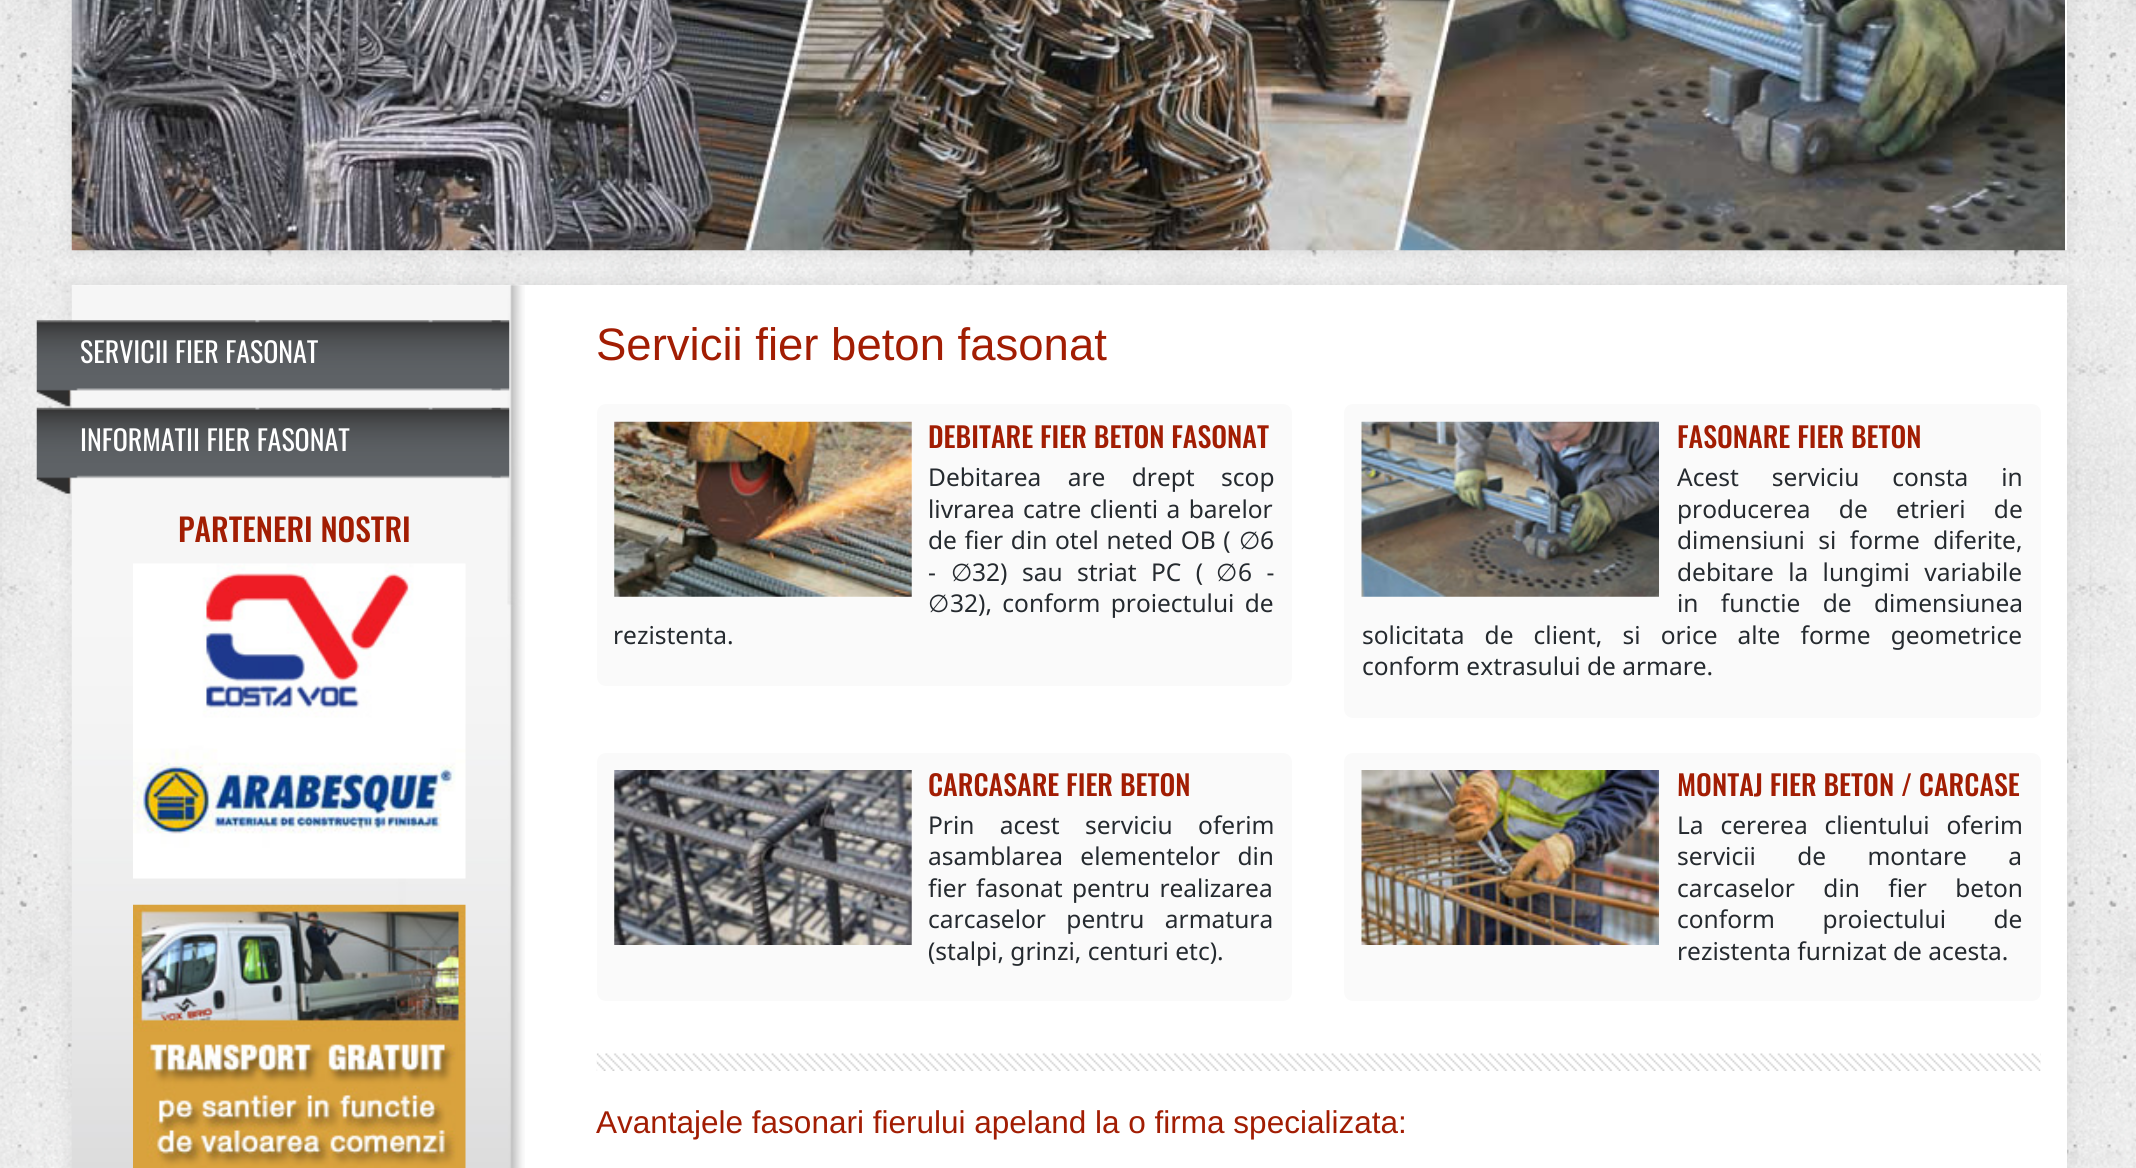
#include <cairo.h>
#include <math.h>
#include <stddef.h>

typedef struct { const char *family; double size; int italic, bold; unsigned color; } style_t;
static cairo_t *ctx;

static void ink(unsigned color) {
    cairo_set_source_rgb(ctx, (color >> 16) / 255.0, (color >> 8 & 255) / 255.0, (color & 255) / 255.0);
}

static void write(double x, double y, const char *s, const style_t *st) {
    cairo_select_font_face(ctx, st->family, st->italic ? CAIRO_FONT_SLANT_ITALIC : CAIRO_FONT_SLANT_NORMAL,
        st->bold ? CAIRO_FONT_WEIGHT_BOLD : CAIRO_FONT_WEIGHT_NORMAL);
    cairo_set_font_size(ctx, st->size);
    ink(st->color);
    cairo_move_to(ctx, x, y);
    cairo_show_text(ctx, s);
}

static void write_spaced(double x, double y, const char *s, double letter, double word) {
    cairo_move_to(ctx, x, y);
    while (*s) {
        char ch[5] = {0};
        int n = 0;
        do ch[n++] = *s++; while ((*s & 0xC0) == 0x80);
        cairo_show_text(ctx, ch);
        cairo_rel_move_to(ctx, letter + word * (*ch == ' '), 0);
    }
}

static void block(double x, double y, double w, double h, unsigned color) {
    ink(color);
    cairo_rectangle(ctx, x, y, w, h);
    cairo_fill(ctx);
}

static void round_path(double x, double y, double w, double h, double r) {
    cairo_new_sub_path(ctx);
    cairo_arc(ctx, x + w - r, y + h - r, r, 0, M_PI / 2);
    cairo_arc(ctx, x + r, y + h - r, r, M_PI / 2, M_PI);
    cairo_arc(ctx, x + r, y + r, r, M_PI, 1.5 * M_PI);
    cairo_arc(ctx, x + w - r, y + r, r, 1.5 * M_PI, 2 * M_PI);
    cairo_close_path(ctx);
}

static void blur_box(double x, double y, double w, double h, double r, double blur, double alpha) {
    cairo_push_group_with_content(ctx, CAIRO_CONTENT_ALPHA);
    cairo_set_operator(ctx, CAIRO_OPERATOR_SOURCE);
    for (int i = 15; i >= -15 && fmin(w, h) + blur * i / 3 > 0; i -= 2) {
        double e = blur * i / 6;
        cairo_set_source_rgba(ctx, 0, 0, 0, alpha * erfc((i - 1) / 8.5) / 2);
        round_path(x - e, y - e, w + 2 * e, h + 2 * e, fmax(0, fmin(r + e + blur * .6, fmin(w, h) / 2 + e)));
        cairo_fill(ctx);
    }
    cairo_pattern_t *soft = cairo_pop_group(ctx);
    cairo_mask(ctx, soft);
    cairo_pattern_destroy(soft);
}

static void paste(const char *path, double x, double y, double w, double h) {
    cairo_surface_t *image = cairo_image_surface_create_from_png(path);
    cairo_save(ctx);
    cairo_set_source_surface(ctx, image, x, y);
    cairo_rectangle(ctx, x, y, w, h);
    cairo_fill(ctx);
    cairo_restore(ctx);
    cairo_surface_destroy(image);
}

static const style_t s1 = {"Oswald", 28, 0, 0, 0xffffff};
static const style_t s2 = {"Oswald Medium", 31.5, 0, 0, 0xa21d03};
static const style_t s3 = {"Liberation Sans", 45.5, 0, 0, 0xa21d03};
static const style_t s4 = {"Oswald Medium", 28, 0, 0, 0xa21d03};
static const style_t s5 = {"DejaVu Sans", 24.5, 0, 0, 0x252a2f};
static const style_t s6 = {"Noto Sans", 24.5, 0, 0, 0x252a2f};
static const style_t s7 = {"Liberation Sans", 31.5, 0, 0, 0xa21d03};

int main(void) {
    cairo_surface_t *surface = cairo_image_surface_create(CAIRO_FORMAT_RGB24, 2136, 1168);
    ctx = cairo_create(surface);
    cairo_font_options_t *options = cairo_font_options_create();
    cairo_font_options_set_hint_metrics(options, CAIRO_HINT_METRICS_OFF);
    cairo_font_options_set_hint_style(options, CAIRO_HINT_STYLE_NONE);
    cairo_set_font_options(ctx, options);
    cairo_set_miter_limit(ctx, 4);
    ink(0xffffff);
    cairo_paint(ctx);
    paste("pic1.png", 0, 0, 2136, 1168);
    ink(0x000000);
    blur_box(72, -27, 1995, 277, 0, 9, 0.1);
    block(2065, 0, 2, 250, 0xffffff);
    paste("pic2.png", 71, 0, 1994, 251);
    ink(0x000000);
    blur_box(72, 285, 1995, 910, 0, 9, 0.1);
    block(72, 285, 1995, 883, 0xffffff);
    paste("pic3.png", 71, 285, 454, 883);
    paste("pic4.png", 36, 320, 474, 88);
    write(80, 363, "SERVICII FIER FASONAT", &s1);
    paste("pic5.png", 36, 407, 474, 88);
    write(80, 451, "INFORMATII FIER FASONAT", &s1);
    write(178, 542, "PARTENERI NOSTRI", &s2);
    paste("pic6.png", 133, 563, 333, 158);
    paste("pic7.png", 133, 721, 333, 158);
    paste("pic8.png", 133, 904, 333, 264);
    write(596, 360, "Servicii fier beton fasonat", &s3);
    ink(0xfafafa);
    round_path(597, 404, 695, 282, 9);
    cairo_fill(ctx);
    paste("pic9.png", 614, 421, 298, 176);
    write(928, 448, "DEBITARE FIER BETON FASONAT", &s4);
    cairo_select_font_face(ctx, "Noto Sans", CAIRO_FONT_SLANT_NORMAL, CAIRO_FONT_WEIGHT_NORMAL);
    cairo_set_font_size(ctx, 24.5);
    ink(0x252a2f);
    write_spaced(928, 486, "Debitarea are drept scop", 0, 20);
    write_spaced(928, 518, "livrarea catre clienti a barelor", 0, 2);
    write_spaced(928, 549, "de fier din otel neted OB (", 0, 1.25);
    write(1239, 549, "∅", &s5);
    write(1260, 549, "6", &s6);
    write(928, 581, "-", &s6);
    write(951, 581, "∅", &s5);
    write(972, 581, "32)", &s6);
    write_spaced(1022, 581, "sau striat PC (", 0, 8);
    write(1216, 581, "∅", &s5);
    cairo_select_font_face(ctx, "Noto Sans", CAIRO_FONT_SLANT_NORMAL, CAIRO_FONT_WEIGHT_NORMAL);
    write_spaced(1238, 581, "6 -", 0, 8);
    write(928, 612, "∅", &s5);
    cairo_select_font_face(ctx, "Noto Sans", CAIRO_FONT_SLANT_NORMAL, CAIRO_FONT_WEIGHT_NORMAL);
    write_spaced(950, 612, "32), conform proiectului de", 0, 4);
    write(613, 644, "rezistenta.", &s6);
    ink(0xfafafa);
    round_path(1344, 404, 697, 314, 9);
    cairo_fill(ctx);
    paste("pic10.png", 1361, 421, 298, 176);
    write(1677, 448, "FASONARE FIER BETON", &s4);
    cairo_select_font_face(ctx, "Noto Sans", CAIRO_FONT_SLANT_NORMAL, CAIRO_FONT_WEIGHT_NORMAL);
    cairo_set_font_size(ctx, 24.5);
    ink(0x252a2f);
    write_spaced(1677, 486, "Acest serviciu consta in", 0, 26.5);
    write_spaced(1677, 518, "producerea de etrieri de", 0, 22);
    write_spaced(1677, 549, "dimensiuni si forme diferite,", 0, 7);
    write_spaced(1677, 581, "debitare la lungimi variabile", 0, 8);
    write_spaced(1677, 612, "in functie de dimensiunea", 0, 16);
    write_spaced(1362, 644, "solicitata de client, si orice alte forme geometrice", 0, 13.75);
    write(1362, 675, "conform extrasului de armare.", &s6);
    ink(0xfafafa);
    round_path(597, 753, 695, 248, 9);
    cairo_fill(ctx);
    paste("pic11.png", 614, 770, 298, 175);
    write(928, 796, "CARCASARE FIER BETON", &s4);
    cairo_select_font_face(ctx, "Noto Sans", CAIRO_FONT_SLANT_NORMAL, CAIRO_FONT_WEIGHT_NORMAL);
    cairo_set_font_size(ctx, 24.5);
    ink(0x252a2f);
    write_spaced(928, 834, "Prin acest serviciu oferim", 0, 19);
    write_spaced(928, 865, "asamblarea elementelor din", 0, 11);
    write_spaced(928, 897, "fier fasonat pentru realizarea", 0, 3);
    write_spaced(928, 928, "carcaselor pentru armatura", 0, 14);
    write(928, 960, "(stalpi, grinzi, centuri etc).", &s6);
    ink(0xfafafa);
    round_path(1344, 753, 697, 248, 9);
    cairo_fill(ctx);
    paste("pic12.png", 1361, 770, 298, 175);
    write(1677, 796, "MONTAJ FIER BETON / CARCASE", &s4);
    cairo_select_font_face(ctx, "Noto Sans", CAIRO_FONT_SLANT_NORMAL, CAIRO_FONT_WEIGHT_NORMAL);
    cairo_set_font_size(ctx, 24.5);
    ink(0x252a2f);
    write_spaced(1677, 834, "La cererea clientului oferim", 0, 10.5);
    write_spaced(1677, 865, "servicii de montare a", 0, 35);
    write_spaced(1677, 897, "carcaselor din fier beton", 0, 22);
    write_spaced(1677, 928, "conform proiectului de", 0, 41);
    write(1677, 960, "rezistenta furnizat de acesta.", &s6);
    paste("pic13.png", 596, 1053, 1445, 18);
    write(596, 1133, "Avantajele fasonari fierului apeland la o firma specializata:", &s7);
    cairo_surface_write_to_png(surface, "screenshot.png");
    cairo_font_options_destroy(options);
    cairo_destroy(ctx);
    cairo_surface_destroy(surface);
    return 0;
}
